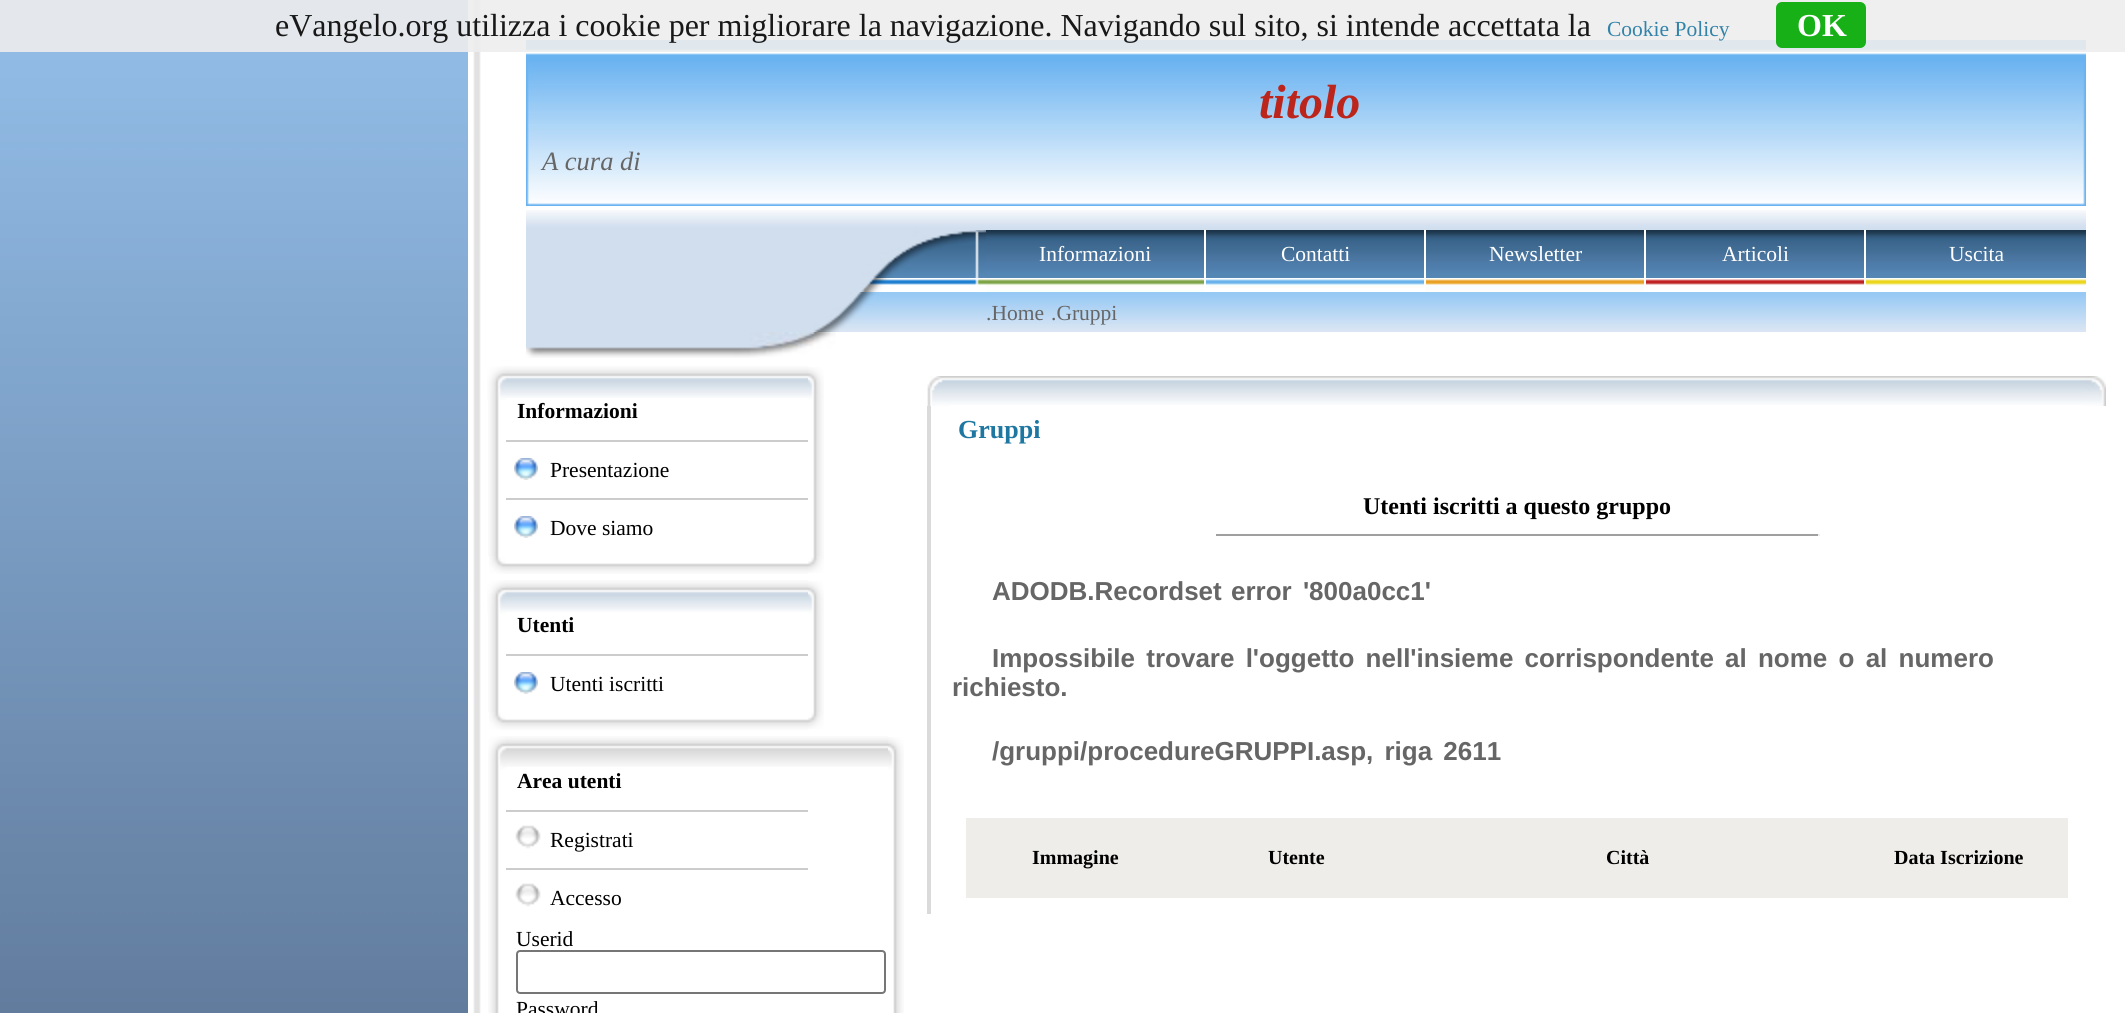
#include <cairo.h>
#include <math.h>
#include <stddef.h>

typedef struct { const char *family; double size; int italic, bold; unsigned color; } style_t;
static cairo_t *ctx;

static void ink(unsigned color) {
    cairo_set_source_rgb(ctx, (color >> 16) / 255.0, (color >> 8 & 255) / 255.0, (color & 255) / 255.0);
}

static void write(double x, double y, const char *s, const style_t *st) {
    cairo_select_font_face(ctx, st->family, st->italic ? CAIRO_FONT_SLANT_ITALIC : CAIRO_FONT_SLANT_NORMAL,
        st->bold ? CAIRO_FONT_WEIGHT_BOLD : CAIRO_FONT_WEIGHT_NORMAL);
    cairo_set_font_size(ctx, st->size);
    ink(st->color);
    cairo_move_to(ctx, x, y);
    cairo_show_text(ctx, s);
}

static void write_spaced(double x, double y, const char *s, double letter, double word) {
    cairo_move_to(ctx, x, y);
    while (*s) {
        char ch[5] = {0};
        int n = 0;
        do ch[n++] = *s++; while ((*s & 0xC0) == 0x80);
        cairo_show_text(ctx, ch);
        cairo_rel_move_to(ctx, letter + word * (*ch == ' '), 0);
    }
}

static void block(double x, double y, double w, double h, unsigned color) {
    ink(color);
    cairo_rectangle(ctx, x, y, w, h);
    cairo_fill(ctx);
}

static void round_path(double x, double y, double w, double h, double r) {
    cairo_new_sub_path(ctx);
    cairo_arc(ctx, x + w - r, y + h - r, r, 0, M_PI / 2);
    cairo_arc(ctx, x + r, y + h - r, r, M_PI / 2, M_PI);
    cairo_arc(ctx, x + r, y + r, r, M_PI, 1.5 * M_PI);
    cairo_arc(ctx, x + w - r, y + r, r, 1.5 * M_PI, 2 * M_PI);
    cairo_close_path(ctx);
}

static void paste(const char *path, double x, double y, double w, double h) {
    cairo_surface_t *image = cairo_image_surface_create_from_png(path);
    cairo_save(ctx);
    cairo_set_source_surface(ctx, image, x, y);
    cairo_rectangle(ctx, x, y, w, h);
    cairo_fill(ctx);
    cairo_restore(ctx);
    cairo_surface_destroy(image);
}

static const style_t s1 = {"Liberation Serif", 32, 0, 0, 0x181818};
static const style_t s2 = {"Liberation Serif", 21.5, 0, 0, 0x3383a9};
static const style_t s3 = {"Liberation Serif", 32, 0, 1, 0xffffff};
static const style_t s4 = {"Liberation Serif", 48, 1, 1, 0xbc251c};
static const style_t s5 = {"Liberation Serif", 26.5, 1, 0, 0x666666};
static const style_t s6 = {"Liberation Serif", 21.5, 0, 0, 0xffffff};
static const style_t s7 = {"Liberation Serif", 21.5, 0, 0, 0x666666};
static const style_t s8 = {"Liberation Serif", 21.5, 0, 1, 0x000000};
static const style_t s9 = {"Liberation Serif", 21.5, 0, 0, 0x000000};
static const style_t s10 = {"Liberation Serif", 26, 0, 1, 0x1e77a1};
static const style_t s11 = {"Liberation Serif", 24, 0, 1, 0x000000};
static const style_t s12 = {"Liberation Sans", 26, 0, 1, 0x666666};
static const style_t s13 = {"Liberation Serif", 20, 0, 1, 0x000000};

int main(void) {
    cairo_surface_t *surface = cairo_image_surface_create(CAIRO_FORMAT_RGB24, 2125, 1013);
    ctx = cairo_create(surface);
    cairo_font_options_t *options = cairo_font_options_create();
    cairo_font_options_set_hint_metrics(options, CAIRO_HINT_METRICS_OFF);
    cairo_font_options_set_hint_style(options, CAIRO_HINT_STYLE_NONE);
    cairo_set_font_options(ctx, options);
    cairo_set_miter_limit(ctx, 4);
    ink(0xffffff);
    cairo_paint(ctx);
    block(0, 0, 468, 46, 0x91bbe5);
    paste("pic1.png", 0, 46, 468, 967);
    paste("pic2.png", 473, 0, 8, 1013);
    paste("pic3.png", 526, 40, 1560, 166);
    cairo_set_source_rgba(ctx, 0.933, 0.933, 0.933, 0.9);
    cairo_rectangle(ctx, 0, 0, 2125, 52);
    cairo_fill(ctx);
    write(275, 36, "eVangelo.org utilizza i cookie per migliorare la navigazione. Navigando sul sito, si intende accettata la", &s1);
    write(1607, 36, "Cookie Policy", &s2);
    cairo_set_source_rgba(ctx, 0, 0.667, 0, 0.9);
    round_path(1776, 2, 90, 46, 6);
    cairo_fill(ctx);
    write(1797, 36, "OK", &s3);
    write(1259, 118, "titolo", &s4);
    write(542, 170, "A cura di", &s5);
    paste("pic4.png", 526, 210, 460, 20);
    paste("pic5.png", 986, 210, 1100, 20);
    paste("pic6.png", 526, 230, 460, 48);
    paste("pic7.png", 986, 230, 218, 48);
    write(1039, 261, "Informazioni", &s6);
    paste("pic7.png", 1206, 230, 218, 48);
    write(1281, 261, "Contatti", &s6);
    paste("pic7.png", 1426, 230, 218, 48);
    write(1489, 261, "Newsletter", &s6);
    paste("pic7.png", 1646, 230, 218, 48);
    write(1722, 261, "Articoli", &s6);
    paste("pic8.png", 1866, 230, 220, 48);
    write(1949, 261, "Uscita", &s6);
    paste("pic9.png", 526, 278, 460, 14);
    paste("pic10.png", 986, 279, 218, 13);
    paste("pic11.png", 1206, 278, 218, 10);
    paste("pic12.png", 1426, 278, 218, 14);
    paste("pic13.png", 1646, 279, 218, 6);
    paste("pic14.png", 1866, 278, 220, 8);
    paste("pic15.png", 526, 292, 460, 40);
    paste("pic16.png", 986, 292, 1100, 40);
    write(986, 320, ".Home", &s7);
    write(1051, 320, ".Gruppi", &s7);
    paste("pic17.png", 526, 332, 310, 26);
    paste("pic18.png", 487, 366, 19, 34);
    paste("pic19.png", 506, 366, 302, 32);
    paste("pic20.png", 808, 367, 16, 33);
    paste("pic21.png", 488, 400, 11, 156);
    write(517, 418, "Informazioni", &s8);
    block(506, 440, 302, 2, 0xcccccc);
    paste("pic22.png", 514, 458, 24, 22);
    write(550, 477, "Presentazione", &s9);
    block(506, 498, 302, 2, 0xcccccc);
    paste("pic22.png", 514, 516, 24, 22);
    write(550, 535, "Dove siamo", &s9);
    paste("pic23.png", 813, 400, 11, 156);
    paste("pic24.png", 489, 556, 17, 18);
    paste("pic25.png", 506, 563, 302, 11);
    paste("pic26.png", 808, 556, 16, 17);
    paste("pic18.png", 487, 580, 19, 34);
    paste("pic19.png", 506, 580, 302, 32);
    paste("pic20.png", 808, 581, 16, 33);
    paste("pic27.png", 488, 614, 11, 98);
    write(517, 632, "Utenti", &s8);
    block(506, 654, 302, 2, 0xcccccc);
    paste("pic22.png", 514, 672, 24, 22);
    write(550, 691, "Utenti iscritti", &s9);
    paste("pic28.png", 813, 614, 11, 98);
    paste("pic24.png", 489, 712, 17, 18);
    paste("pic25.png", 506, 719, 302, 11);
    paste("pic26.png", 808, 712, 16, 17);
    paste("pic29.png", 488, 736, 18, 34);
    paste("pic30.png", 506, 736, 382, 31);
    paste("pic31.png", 888, 737, 16, 33);
    paste("pic21.png", 488, 770, 11, 156);
    write(517, 788, "Area utenti", &s8);
    block(506, 810, 302, 2, 0xcccccc);
    paste("pic32.png", 515, 825, 26, 24);
    write(550, 847, "Registrati", &s9);
    block(506, 868, 302, 2, 0xcccccc);
    paste("pic32.png", 515, 883, 26, 24);
    write(550, 905, "Accesso", &s9);
    paste("pic23.png", 893, 770, 11, 156);
    paste("pic33.png", 488, 926, 11, 87);
    write(516, 946, "Userid", &s9);
    round_path(517, 951, 368, 42, 3);
    ink(0x767676);
    cairo_stroke(ctx);
    write(516, 1016, "Password", &s9);
    paste("pic34.png", 893, 926, 11, 87);
    paste("pic35.png", 927, 376, 23, 30);
    paste("pic36.png", 950, 376, 1134, 29);
    paste("pic37.png", 2084, 376, 22, 30);
    block(927, 406, 4, 508, 0xdadada);
    write(958, 438, "Gruppi", &s10);
    write(1363, 514, "Utenti iscritti a questo gruppo", &s11);
    block(1216, 534, 604, 2, 0x9f9f9f);
    block(1818, 534, 2, 2, 0xeeeeee);
    write(992, 600, "ADODB.Recordset", &s12);
    write_spaced(1231, 600, "error '800a0cc1'", 0, 4);
    write_spaced(992, 667, "Impossibile trovare l'oggetto nell'insieme corrispondente al nome o al numero", 0, 4);
    write(952, 696, "richiesto.", &s12);
    write(992, 760, "/gruppi/procedureGRUPPI.asp", &s12);
    write_spaced(1366, 760, ", riga 2611", 0, 4);
    block(966, 818, 1102, 80, 0xeeedea);
    write(1032, 864, "Immagine", &s13);
    write(1268, 864, "Utente", &s13);
    write(1606, 864, "Città", &s13);
    write(1894, 864, "Data Iscrizione", &s13);
    cairo_surface_write_to_png(surface, "screenshot.png");
    cairo_font_options_destroy(options);
    cairo_destroy(ctx);
    cairo_surface_destroy(surface);
    return 0;
}
